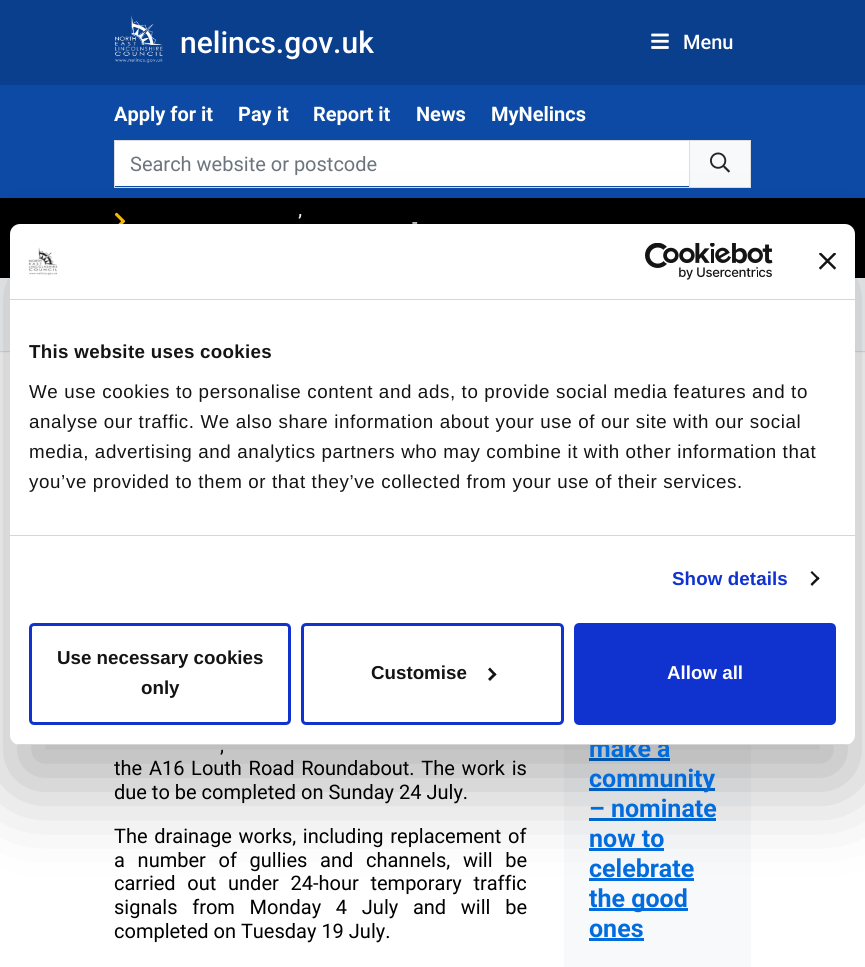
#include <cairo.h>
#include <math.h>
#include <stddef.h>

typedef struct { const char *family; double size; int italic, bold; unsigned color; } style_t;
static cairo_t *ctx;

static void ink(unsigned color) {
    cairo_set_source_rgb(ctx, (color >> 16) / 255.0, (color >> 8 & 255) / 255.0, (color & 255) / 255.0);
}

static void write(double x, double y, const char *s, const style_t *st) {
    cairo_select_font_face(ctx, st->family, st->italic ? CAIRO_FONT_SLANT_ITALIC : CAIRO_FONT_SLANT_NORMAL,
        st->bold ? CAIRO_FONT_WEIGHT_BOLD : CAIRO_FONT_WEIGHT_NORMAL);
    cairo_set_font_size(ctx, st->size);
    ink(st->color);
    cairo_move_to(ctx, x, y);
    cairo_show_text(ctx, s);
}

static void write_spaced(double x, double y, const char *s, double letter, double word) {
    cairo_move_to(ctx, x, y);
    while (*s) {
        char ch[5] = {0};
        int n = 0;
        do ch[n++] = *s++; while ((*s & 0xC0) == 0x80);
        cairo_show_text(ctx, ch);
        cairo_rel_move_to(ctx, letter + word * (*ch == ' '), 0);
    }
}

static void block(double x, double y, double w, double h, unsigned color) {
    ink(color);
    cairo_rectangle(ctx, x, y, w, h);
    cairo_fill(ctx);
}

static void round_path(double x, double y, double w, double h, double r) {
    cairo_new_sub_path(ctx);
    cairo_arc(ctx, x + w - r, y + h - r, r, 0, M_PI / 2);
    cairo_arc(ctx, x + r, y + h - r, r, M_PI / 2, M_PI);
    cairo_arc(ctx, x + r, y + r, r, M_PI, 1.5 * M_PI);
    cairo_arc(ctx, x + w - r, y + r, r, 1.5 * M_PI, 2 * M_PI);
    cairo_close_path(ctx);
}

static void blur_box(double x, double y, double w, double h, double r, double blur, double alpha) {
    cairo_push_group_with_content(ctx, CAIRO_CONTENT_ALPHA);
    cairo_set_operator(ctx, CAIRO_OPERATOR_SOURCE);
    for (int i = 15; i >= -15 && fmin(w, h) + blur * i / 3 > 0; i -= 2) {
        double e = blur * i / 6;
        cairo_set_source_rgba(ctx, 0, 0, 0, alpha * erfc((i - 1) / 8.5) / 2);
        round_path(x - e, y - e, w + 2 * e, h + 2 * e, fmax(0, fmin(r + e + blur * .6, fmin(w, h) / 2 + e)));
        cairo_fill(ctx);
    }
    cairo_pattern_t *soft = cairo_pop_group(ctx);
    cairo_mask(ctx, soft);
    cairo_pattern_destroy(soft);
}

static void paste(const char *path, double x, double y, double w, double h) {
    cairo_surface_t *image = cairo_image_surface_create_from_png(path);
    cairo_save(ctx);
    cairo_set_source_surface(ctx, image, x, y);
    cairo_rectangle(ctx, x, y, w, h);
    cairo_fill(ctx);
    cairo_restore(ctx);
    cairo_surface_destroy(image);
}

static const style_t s1 = {"Roboto Medium", 30, 0, 0, 0xffffff};
static const style_t s2 = {"Roboto Medium", 20, 0, 0, 0xffffff};
static const style_t s3 = {"Roboto", 20, 0, 1, 0xffffff};
static const style_t s4 = {"Roboto", 20, 0, 0, 0x6c757d};
static const style_t s5 = {"Roboto", 20, 0, 0, 0xffffff};
static const style_t s6 = {"Roboto", 25, 0, 1, 0x006cde};
static const style_t s7 = {"Liberation Sans", 18.75, 0, 1, 0x141414};
static const style_t s8 = {"Liberation Sans", 18.75, 0, 1, 0xffffff};
static const style_t s9 = {"Roboto", 20, 0, 0, 0x000000};

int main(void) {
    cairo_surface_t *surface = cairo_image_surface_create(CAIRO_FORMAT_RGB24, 865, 967);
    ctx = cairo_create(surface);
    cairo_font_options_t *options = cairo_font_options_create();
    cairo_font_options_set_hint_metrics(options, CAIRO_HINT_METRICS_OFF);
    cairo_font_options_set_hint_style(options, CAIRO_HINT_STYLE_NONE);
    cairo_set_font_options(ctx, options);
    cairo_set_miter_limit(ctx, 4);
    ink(0x0c4aa6);
    cairo_paint(ctx);
    block(0, 0, 865, 85, 0x0a3f8e);
    paste("pic1.png", 115, 15, 48, 48);
    write(180, 53, "nelincs.gov.uk", &s1);
    paste("pic2.png", 651, 33, 18, 16);
    write(683, 49, "Menu", &s2);
    write(114, 121, "Apply for it", &s3);
    write(238, 121, "Pay it", &s3);
    write(313, 121, "Report it", &s3);
    write(416, 121, "News", &s3);
    write(491, 121, "MyNelincs", &s3);
    block(115, 141, 574, 45, 0xffffff);
    cairo_rectangle(ctx, 114.5, 140.5, 575, 47);
    ink(0xdddddd);
    cairo_set_line_width(ctx, 1);
    cairo_stroke(ctx);
    write(130, 171, "Search website or postcode", &s4);
    ink(0xf8f9fa);
    cairo_rectangle(ctx, 689.5, 140.5, 61, 47);
    cairo_fill_preserve(ctx);
    ink(0xdddddd);
    cairo_stroke(ctx);
    paste("pic3.png", 710, 152, 20, 21);
    block(0, 198, 865, 80, 0x000000);
    paste("pic4.png", 114, 212, 12, 12);
    write(298, 229, "’", &s5);
    write(412, 229, "-", &s5);
    block(0, 353, 865, 614, 0xffffff);
    block(0, 278, 865, 75, 0xf8f9fa);
    block(0, 351, 865, 1, 0xdee2e6);
    block(564, 745, 187, 222, 0xf8f9fa);
    block(589, 758, 81, 3, 0x006cde);
    block(589, 788, 126, 3, 0x006cde);
    block(589, 818, 127, 3, 0x006cde);
    block(589, 848, 75, 3, 0x006cde);
    block(589, 878, 105, 3, 0x006cde);
    block(589, 908, 99, 3, 0x006cde);
    ink(0x000000);
    blur_box(10, 264, 845, 521, 10, 42.5, 0.3);
    write(589, 757, "make a", &s6);
    ink(0xffffff);
    round_path(10, 224, 845, 521, 10);
    cairo_fill(ctx);
    block(10, 299, 845, 1, 0xd6d6d6);
    paste("pic5.png", 28, 247, 30, 28);
    paste("pic6.png", 645, 243, 128, 37);
    paste("pic7.png", 819, 253, 17, 17);
    block(10, 535, 845, 1, 0xd6d6d6);
    cairo_select_font_face(ctx, "Liberation Sans", CAIRO_FONT_SLANT_NORMAL, CAIRO_FONT_WEIGHT_BOLD);
    cairo_set_font_size(ctx, 18.75);
    ink(0x141414);
    write_spaced(29, 358, "This website uses cookies", 0.3, 0);
    cairo_select_font_face(ctx, "Liberation Sans", CAIRO_FONT_SLANT_NORMAL, CAIRO_FONT_WEIGHT_NORMAL);
    write_spaced(29, 398, "We use cookies to personalise content and ads, to provide social media features and to", 0.62, 0);
    write_spaced(29, 428, "analyse our traffic. We also share information about your use of our site with our social", 0.62, 0);
    write_spaced(29, 458, "media, advertising and analytics partners who may combine it with other information that", 0.62, 0);
    write_spaced(29, 488, "you’ve provided to them or that they’ve collected from your use of their services.", 0.62, 0);
    cairo_select_font_face(ctx, "Liberation Sans", CAIRO_FONT_SLANT_NORMAL, CAIRO_FONT_WEIGHT_BOLD);
    ink(0x1032cf);
    write_spaced(672, 585, "Show details", 0.1, 0);
    ink(0x141414);
    cairo_new_path(ctx);
    cairo_move_to(ctx, 812, 571);
    cairo_line_to(ctx, 819.5, 578.5);
    cairo_line_to(ctx, 818, 580);
    cairo_line_to(ctx, 810.5, 572.5);
    cairo_close_path(ctx);
    cairo_fill(ctx);
    cairo_new_path(ctx);
    cairo_move_to(ctx, 818, 576.5);
    cairo_line_to(ctx, 819.5, 578.5);
    cairo_line_to(ctx, 812, 586);
    cairo_line_to(ctx, 810.5, 584);
    cairo_close_path(ctx);
    cairo_fill(ctx);
    cairo_save(ctx);
    round_path(10, 224, 845, 521, 10);
    cairo_clip(ctx);
    block(10, 744, 845, 1, 0xd6d6d6);
    cairo_restore(ctx);
    round_path(30.5, 624.5, 259, 99, 3.5);
    ink(0x1032cf);
    cairo_set_line_width(ctx, 3);
    cairo_stroke(ctx);
    write(57, 664, "Use necessary cookies", &s7);
    write(141, 694, "only", &s7);
    round_path(302.5, 624.5, 260, 99, 3.5);
    ink(0x1032cf);
    cairo_stroke(ctx);
    write(371, 679, "Customise", &s7);
    cairo_new_path(ctx);
    cairo_move_to(ctx, 490, 667.5);
    cairo_line_to(ctx, 496.5, 674.5);
    cairo_line_to(ctx, 494.5, 676);
    cairo_line_to(ctx, 488, 669.5);
    cairo_close_path(ctx);
    cairo_fill(ctx);
    cairo_new_path(ctx);
    cairo_move_to(ctx, 494.5, 672.5);
    cairo_line_to(ctx, 496.5, 674.5);
    cairo_line_to(ctx, 490, 681);
    cairo_line_to(ctx, 488, 679);
    cairo_close_path(ctx);
    cairo_fill(ctx);
    ink(0x1032cf);
    round_path(575.5, 624.5, 259, 99, 3.5);
    cairo_fill_preserve(ctx);
    cairo_stroke(ctx);
    write(667, 679, "Allow all", &s8);
    cairo_select_font_face(ctx, "Roboto", CAIRO_FONT_SLANT_NORMAL, CAIRO_FONT_WEIGHT_NORMAL);
    cairo_set_font_size(ctx, 20);
    ink(0x000000);
    write_spaced(220, 752, ",", 0, 5);
    write_spaced(114, 775, "the A16 Louth Road Roundabout. The work is", 0, 1.75);
    write(114, 799, "due to be completed on Sunday 24 July.", &s9);
    write_spaced(114, 843, "The drainage works, including replacement of", 0, 1.75);
    write_spaced(114, 867, "a number of gullies and channels, will be", 0, 7.75);
    write_spaced(114, 890, "carried out under 24-hour temporary traffic", 0, 6.75);
    write_spaced(114, 914, "signals from Monday 4 July and will be", 0, 9.75);
    write(114, 938, "completed on Tuesday 19 July.", &s9);
    write(589, 787, "community", &s6);
    write(589, 817, "– nominate", &s6);
    write(589, 847, "now to", &s6);
    write(589, 877, "celebrate", &s6);
    write(589, 907, "the good", &s6);
    write(589, 937, "ones", &s6);
    block(589, 938, 55, 3, 0x006cde);
    cairo_surface_write_to_png(surface, "screenshot.png");
    cairo_font_options_destroy(options);
    cairo_destroy(ctx);
    cairo_surface_destroy(surface);
    return 0;
}
